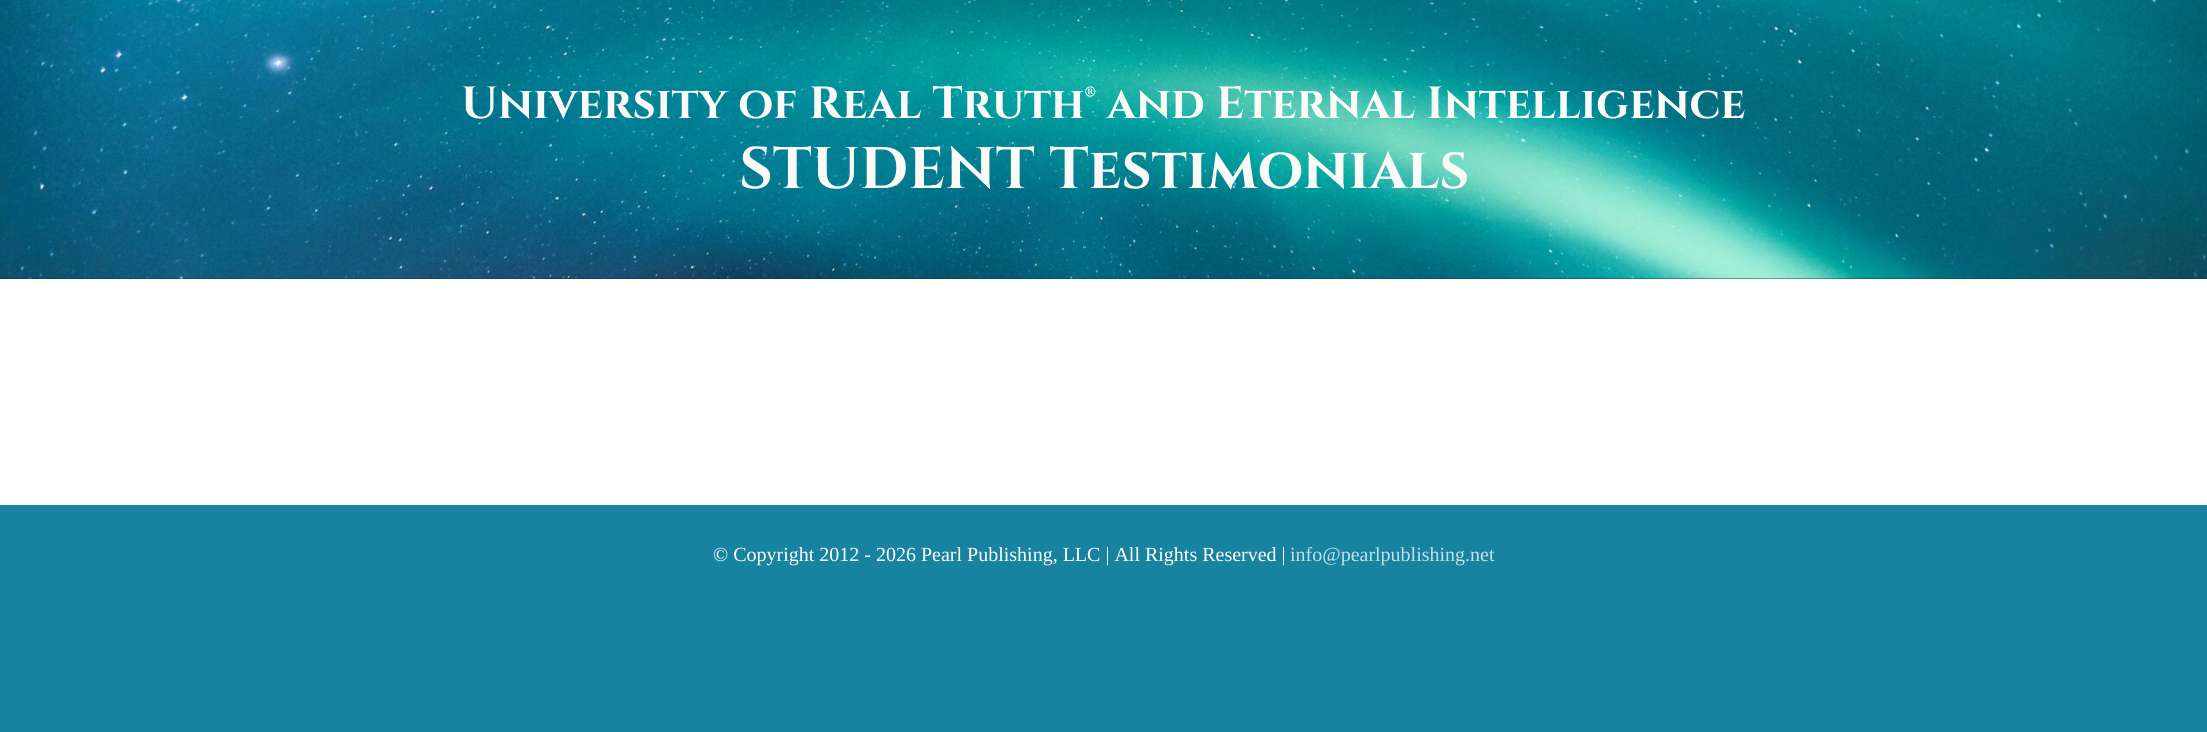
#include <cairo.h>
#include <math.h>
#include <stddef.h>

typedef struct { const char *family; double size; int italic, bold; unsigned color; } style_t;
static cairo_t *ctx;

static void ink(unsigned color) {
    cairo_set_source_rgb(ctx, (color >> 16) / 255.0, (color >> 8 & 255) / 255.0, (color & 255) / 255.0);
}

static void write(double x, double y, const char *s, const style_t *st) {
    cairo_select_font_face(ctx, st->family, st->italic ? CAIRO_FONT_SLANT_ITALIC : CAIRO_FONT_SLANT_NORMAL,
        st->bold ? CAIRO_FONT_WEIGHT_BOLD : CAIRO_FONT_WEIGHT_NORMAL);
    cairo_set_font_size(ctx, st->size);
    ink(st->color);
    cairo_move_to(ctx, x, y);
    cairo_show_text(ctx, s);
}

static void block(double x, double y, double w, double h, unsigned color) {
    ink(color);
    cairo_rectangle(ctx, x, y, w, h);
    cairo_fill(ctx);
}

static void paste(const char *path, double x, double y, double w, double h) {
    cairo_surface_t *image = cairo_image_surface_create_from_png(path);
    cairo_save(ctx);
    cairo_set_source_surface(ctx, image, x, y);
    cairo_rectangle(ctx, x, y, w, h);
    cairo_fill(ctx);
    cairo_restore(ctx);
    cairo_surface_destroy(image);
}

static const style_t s1 = {"Cinzel", 45, 0, 1, 0xfafaf7};
static const style_t s2 = {"Cinzel", 58.5, 0, 1, 0xfafaf7};
static const style_t s3 = {"Liberation Serif", 20, 0, 0, 0xffffff};
static const style_t s4 = {"Liberation Serif", 20, 0, 0, 0xc5e0e7};

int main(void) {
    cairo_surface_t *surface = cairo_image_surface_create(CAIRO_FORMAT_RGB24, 2207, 732);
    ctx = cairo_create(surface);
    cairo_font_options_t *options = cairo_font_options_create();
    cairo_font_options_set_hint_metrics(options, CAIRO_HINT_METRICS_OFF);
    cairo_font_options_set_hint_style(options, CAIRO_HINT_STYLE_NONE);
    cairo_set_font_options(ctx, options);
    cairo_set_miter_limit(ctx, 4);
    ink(0x1883a0);
    cairo_paint(ctx);
    block(0, 279, 2207, 226, 0xffffff);
    block(0, 278, 2207, 1, 0x1c2b3d);
    paste("pic1.png", 0, 0, 2207, 279);
    write(461, 118, "University of Real Truth® and Eternal Intelligence", &s1);
    write(739, 188, "STUDENT Testimonials", &s2);
    write(713, 561, "© Copyright 2012 - 2026 Pearl Publishing, LLC | All Rights Reserved |", &s3);
    write(1290, 561, "info@pearlpublishing.net", &s4);
    cairo_surface_write_to_png(surface, "screenshot.png");
    cairo_font_options_destroy(options);
    cairo_destroy(ctx);
    cairo_surface_destroy(surface);
    return 0;
}
